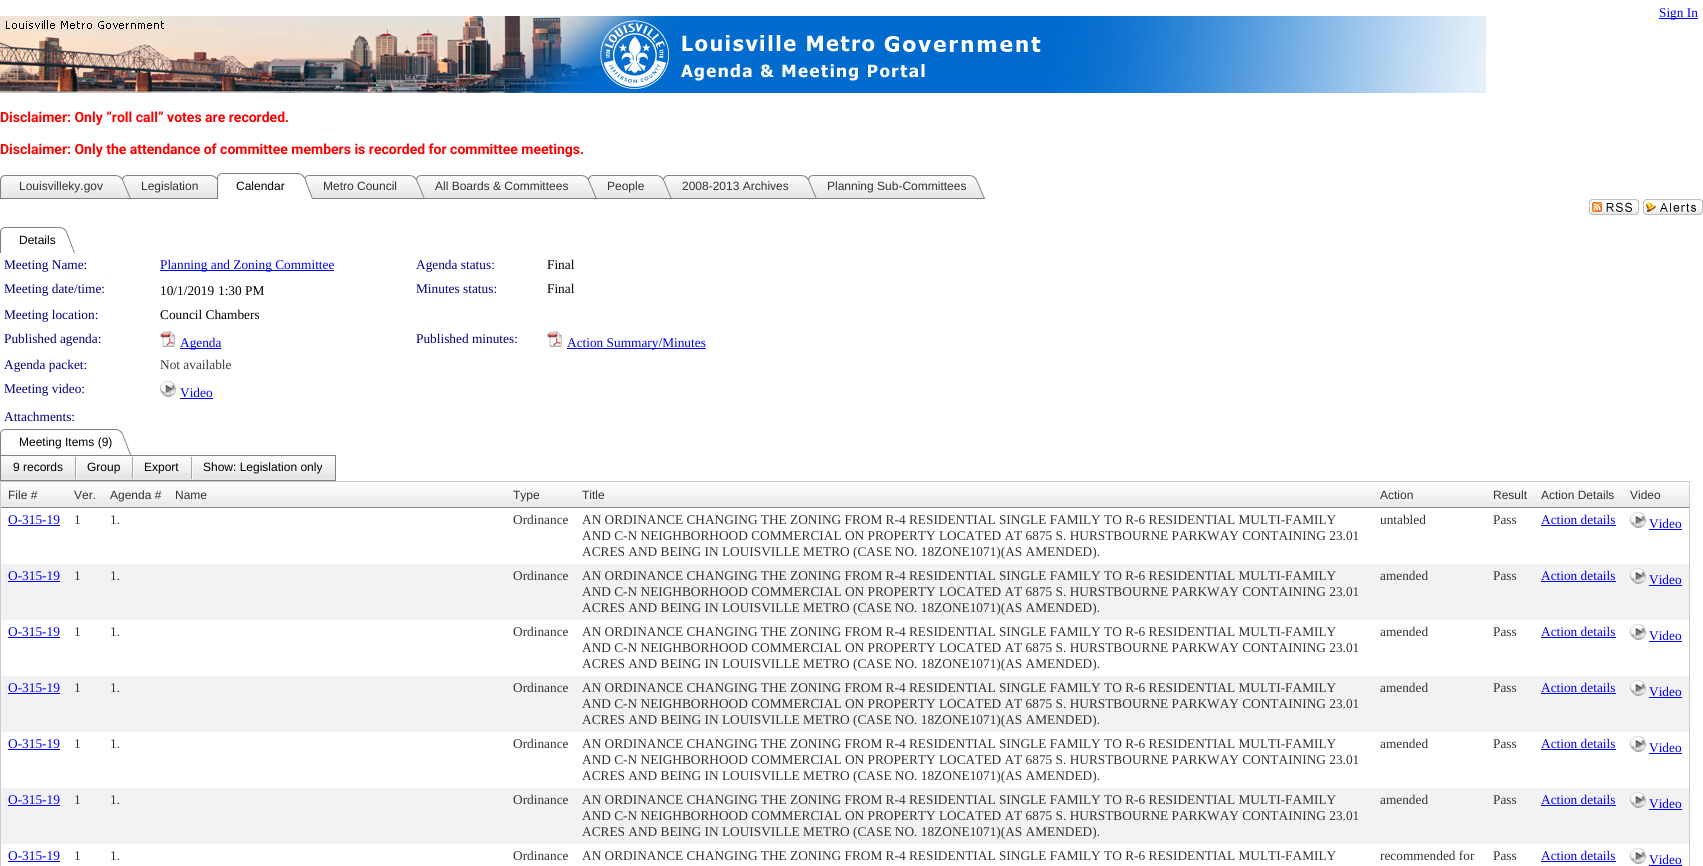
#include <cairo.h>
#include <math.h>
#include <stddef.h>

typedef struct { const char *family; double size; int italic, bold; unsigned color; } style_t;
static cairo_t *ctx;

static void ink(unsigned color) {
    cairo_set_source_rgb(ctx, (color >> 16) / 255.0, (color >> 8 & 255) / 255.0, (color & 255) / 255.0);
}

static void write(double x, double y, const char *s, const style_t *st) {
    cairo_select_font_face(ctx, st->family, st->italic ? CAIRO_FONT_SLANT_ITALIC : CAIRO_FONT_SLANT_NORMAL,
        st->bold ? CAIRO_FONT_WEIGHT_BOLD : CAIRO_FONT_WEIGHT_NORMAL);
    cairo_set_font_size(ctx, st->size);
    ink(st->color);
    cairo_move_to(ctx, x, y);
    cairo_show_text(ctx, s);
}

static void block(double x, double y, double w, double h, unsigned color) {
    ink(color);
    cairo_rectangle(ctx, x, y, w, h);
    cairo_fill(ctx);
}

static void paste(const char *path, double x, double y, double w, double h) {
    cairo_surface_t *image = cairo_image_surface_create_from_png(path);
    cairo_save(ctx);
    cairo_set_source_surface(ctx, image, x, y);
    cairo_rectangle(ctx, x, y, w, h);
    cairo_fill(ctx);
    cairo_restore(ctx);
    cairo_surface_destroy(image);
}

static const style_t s1 = {"Liberation Serif", 13.33, 0, 0, 0x0000ff};
static const style_t s2 = {"Roboto", 14, 0, 1, 0xff0000};
static const style_t s3 = {"Liberation Sans", 12, 0, 0, 0x333333};
static const style_t s4 = {"Liberation Sans", 12, 0, 0, 0x000000};
static const style_t s5 = {"Liberation Serif", 13.33, 0, 0, 0x000080};
static const style_t s6 = {"Liberation Serif", 13.33, 0, 0, 0x000000};
static const style_t s7 = {"Liberation Serif", 13.33, 0, 0, 0x3d3d3d};
static const style_t s8 = {"Liberation Serif", 13.33, 0, 0, 0x333333};

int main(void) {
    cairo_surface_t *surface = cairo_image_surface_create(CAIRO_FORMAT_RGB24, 1703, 866);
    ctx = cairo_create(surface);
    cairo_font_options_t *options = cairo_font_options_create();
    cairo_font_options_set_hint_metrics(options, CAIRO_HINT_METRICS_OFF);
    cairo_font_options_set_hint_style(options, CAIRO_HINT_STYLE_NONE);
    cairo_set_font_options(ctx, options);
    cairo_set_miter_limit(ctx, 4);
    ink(0xffffff);
    cairo_paint(ctx);
    block(1659, 18, 39, 1, 0x0000ff);
    write(1659, 17, "Sign In", &s1);
    paste("pic1.png", 0, 16, 1486, 77);
    write(0, 122, "Disclaimer: Only “roll call” votes are recorded.", &s2);
    write(0, 154, "Disclaimer: Only the attendance of committee members is recorded for committee meetings.", &s2);
    paste("pic2.png", 0, 175, 9, 24);
    paste("pic3.png", 9, 175, 113, 24);
    write(19, 190, "Louisvilleky.gov", &s3);
    paste("pic4.png", 122, 175, 9, 24);
    paste("pic5.png", 131, 175, 86, 24);
    write(141, 190, "Legislation", &s3);
    paste("pic6.png", 217, 173, 10, 26);
    paste("pic7.png", 226, 173, 78, 5);
    write(236, 190, "Calendar", &s4);
    paste("pic8.png", 304, 175, 9, 24);
    paste("pic9.png", 313, 175, 103, 24);
    write(323, 190, "Metro Council", &s3);
    paste("pic10.png", 416, 175, 9, 24);
    paste("pic11.png", 425, 175, 163, 24);
    write(435, 190, "All Boards & Committees", &s3);
    paste("pic4.png", 588, 175, 9, 24);
    paste("pic12.png", 597, 175, 66, 24);
    write(607, 190, "People", &s3);
    paste("pic10.png", 663, 175, 9, 24);
    paste("pic13.png", 672, 175, 136, 24);
    write(682, 190, "2008-2013 Archives", &s3);
    paste("pic4.png", 808, 175, 9, 24);
    paste("pic14.png", 817, 175, 168, 24);
    write(827, 190, "Planning Sub-Committees", &s3);
    paste("pic15.png", 1589, 199, 50, 16);
    paste("pic16.png", 1643, 199, 60, 16);
    paste("pic17.png", 0, 227, 9, 26);
    paste("pic18.png", 9, 227, 66, 26);
    write(19, 244, "Details", &s4);
    write(4, 269, "Meeting Name:", &s5);
    block(160, 270, 174, 1, 0x0000ff);
    write(160, 269, "Planning and Zoning Committee", &s1);
    write(416, 269, "Agenda status:", &s5);
    write(547, 269, "Final", &s6);
    write(4, 293, "Meeting date/time:", &s5);
    write(160, 295, "10/1/2019", &s6);
    write(218, 295, "1:30 PM", &s6);
    write(416, 293, "Minutes status:", &s5);
    write(547, 293, "Final", &s6);
    write(4, 319, "Meeting location:", &s5);
    write(160, 319, "Council Chambers", &s6);
    write(4, 343, "Published agenda:", &s5);
    paste("pic19.png", 160, 331, 15, 16);
    block(180, 348, 41, 1, 0x0000ff);
    write(180, 347, "Agenda", &s1);
    write(416, 343, "Published minutes:", &s5);
    paste("pic19.png", 547, 331, 15, 16);
    block(567, 348, 139, 1, 0x0000ff);
    write(567, 347, "Action Summary/Minutes", &s1);
    write(4, 369, "Agenda packet:", &s5);
    write(160, 369, "Not available", &s7);
    write(4, 393, "Meeting video:", &s5);
    paste("pic20.png", 160, 381, 16, 16);
    write(180, 397, "Video", &s1);
    block(180, 398, 33, 1, 0x0000ff);
    write(4, 421, "Attachments:", &s5);
    paste("pic21.png", 0, 429, 9, 26);
    paste("pic22.png", 9, 429, 122, 26);
    write(19, 446, "Meeting Items (9)", &s4);
    block(1, 474, 334, 6, 0xe6e6e6);
    paste("pic23.png", 1, 456, 334, 18);
    cairo_rectangle(ctx, 0.5, 455.5, 335, 25);
    ink(0x828282);
    cairo_set_line_width(ctx, 1);
    cairo_stroke(ctx);
    write(13, 471, "9 records", &s4);
    paste("pic24.png", 75, 457, 2, 22);
    write(87, 471, "Group", &s4);
    paste("pic25.png", 132, 457, 2, 22);
    write(144, 471, "Export", &s4);
    paste("pic25.png", 191, 457, 2, 22);
    write(203, 471, "Show: Legislation only", &s4);
    cairo_rectangle(ctx, 0.5, 481.5, 1689, 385);
    ink(0xcccccc);
    cairo_stroke(ctx);
    block(1, 502, 1688, 5, 0xeaeaea);
    paste("pic26.png", 1, 482, 66, 20);
    block(1, 507, 1688, 1, 0x828282);
    write(8, 499, "File #", &s3);
    paste("pic27.png", 67, 482, 36, 20);
    write(74, 499, "Ver.", &s3);
    paste("pic28.png", 103, 482, 65, 20);
    write(110, 499, "Agenda #", &s3);
    paste("pic29.png", 168, 482, 338, 20);
    write(175, 499, "Name", &s3);
    paste("pic30.png", 506, 482, 69, 20);
    write(513, 499, "Type", &s3);
    paste("pic31.png", 575, 482, 798, 20);
    write(582, 499, "Title", &s3);
    paste("pic32.png", 1373, 482, 113, 20);
    write(1380, 499, "Action", &s3);
    paste("pic33.png", 1486, 482, 48, 20);
    write(1493, 499, "Result", &s3);
    paste("pic34.png", 1534, 482, 89, 20);
    write(1541, 499, "Action Details", &s3);
    paste("pic26.png", 1623, 482, 66, 20);
    write(1630, 499, "Video", &s3);
    write(8, 524, "O-315-19", &s1);
    block(8, 525, 52, 1, 0x0000ff);
    write(74, 524, "1", &s8);
    write(110, 524, "1.", &s8);
    write(513, 524, "Ordinance", &s8);
    write(582, 524, "AN ORDINANCE CHANGING THE ZONING FROM R-4 RESIDENTIAL SINGLE FAMILY TO R-6 RESIDENTIAL MULTI-FAMILY", &s8);
    write(582, 540, "AND C-N NEIGHBORHOOD COMMERCIAL ON PROPERTY LOCATED AT 6875 S. HURSTBOURNE PARKWAY CONTAINING 23.01", &s8);
    write(582, 556, "ACRES AND BEING IN LOUISVILLE METRO (CASE NO. 18ZONE1071)(AS AMENDED).", &s8);
    write(1380, 524, "untabled", &s8);
    write(1493, 524, "Pass", &s8);
    write(1541, 524, "Action details", &s1);
    block(1541, 525, 75, 1, 0x0000ff);
    paste("pic20.png", 1630, 512, 16, 16);
    write(1649, 528, "Video", &s1);
    block(1649, 529, 33, 1, 0x0000ff);
    block(1, 564, 1688, 56, 0xf2f2f2);
    write(8, 580, "O-315-19", &s1);
    block(8, 581, 52, 1, 0x0000ff);
    write(74, 580, "1", &s8);
    write(110, 580, "1.", &s8);
    write(513, 580, "Ordinance", &s8);
    write(582, 580, "AN ORDINANCE CHANGING THE ZONING FROM R-4 RESIDENTIAL SINGLE FAMILY TO R-6 RESIDENTIAL MULTI-FAMILY", &s8);
    write(582, 596, "AND C-N NEIGHBORHOOD COMMERCIAL ON PROPERTY LOCATED AT 6875 S. HURSTBOURNE PARKWAY CONTAINING 23.01", &s8);
    write(582, 612, "ACRES AND BEING IN LOUISVILLE METRO (CASE NO. 18ZONE1071)(AS AMENDED).", &s8);
    write(1380, 580, "amended", &s8);
    write(1493, 580, "Pass", &s8);
    write(1541, 580, "Action details", &s1);
    block(1541, 581, 75, 1, 0x0000ff);
    paste("pic35.png", 1630, 568, 16, 16);
    write(1649, 584, "Video", &s1);
    block(1649, 585, 33, 1, 0x0000ff);
    write(8, 636, "O-315-19", &s1);
    block(8, 637, 52, 1, 0x0000ff);
    write(74, 636, "1", &s8);
    write(110, 636, "1.", &s8);
    write(513, 636, "Ordinance", &s8);
    write(582, 636, "AN ORDINANCE CHANGING THE ZONING FROM R-4 RESIDENTIAL SINGLE FAMILY TO R-6 RESIDENTIAL MULTI-FAMILY", &s8);
    write(582, 652, "AND C-N NEIGHBORHOOD COMMERCIAL ON PROPERTY LOCATED AT 6875 S. HURSTBOURNE PARKWAY CONTAINING 23.01", &s8);
    write(582, 668, "ACRES AND BEING IN LOUISVILLE METRO (CASE NO. 18ZONE1071)(AS AMENDED).", &s8);
    write(1380, 636, "amended", &s8);
    write(1493, 636, "Pass", &s8);
    write(1541, 636, "Action details", &s1);
    block(1541, 637, 75, 1, 0x0000ff);
    paste("pic20.png", 1630, 624, 16, 16);
    write(1649, 640, "Video", &s1);
    block(1649, 641, 33, 1, 0x0000ff);
    block(1, 676, 1688, 56, 0xf2f2f2);
    write(8, 692, "O-315-19", &s1);
    block(8, 693, 52, 1, 0x0000ff);
    write(74, 692, "1", &s8);
    write(110, 692, "1.", &s8);
    write(513, 692, "Ordinance", &s8);
    write(582, 692, "AN ORDINANCE CHANGING THE ZONING FROM R-4 RESIDENTIAL SINGLE FAMILY TO R-6 RESIDENTIAL MULTI-FAMILY", &s8);
    write(582, 708, "AND C-N NEIGHBORHOOD COMMERCIAL ON PROPERTY LOCATED AT 6875 S. HURSTBOURNE PARKWAY CONTAINING 23.01", &s8);
    write(582, 724, "ACRES AND BEING IN LOUISVILLE METRO (CASE NO. 18ZONE1071)(AS AMENDED).", &s8);
    write(1380, 692, "amended", &s8);
    write(1493, 692, "Pass", &s8);
    write(1541, 692, "Action details", &s1);
    block(1541, 693, 75, 1, 0x0000ff);
    paste("pic35.png", 1630, 680, 16, 16);
    write(1649, 696, "Video", &s1);
    block(1649, 697, 33, 1, 0x0000ff);
    write(8, 748, "O-315-19", &s1);
    block(8, 749, 52, 1, 0x0000ff);
    write(74, 748, "1", &s8);
    write(110, 748, "1.", &s8);
    write(513, 748, "Ordinance", &s8);
    write(582, 748, "AN ORDINANCE CHANGING THE ZONING FROM R-4 RESIDENTIAL SINGLE FAMILY TO R-6 RESIDENTIAL MULTI-FAMILY", &s8);
    write(582, 764, "AND C-N NEIGHBORHOOD COMMERCIAL ON PROPERTY LOCATED AT 6875 S. HURSTBOURNE PARKWAY CONTAINING 23.01", &s8);
    write(582, 780, "ACRES AND BEING IN LOUISVILLE METRO (CASE NO. 18ZONE1071)(AS AMENDED).", &s8);
    write(1380, 748, "amended", &s8);
    write(1493, 748, "Pass", &s8);
    write(1541, 748, "Action details", &s1);
    block(1541, 749, 75, 1, 0x0000ff);
    paste("pic20.png", 1630, 736, 16, 16);
    write(1649, 752, "Video", &s1);
    block(1649, 753, 33, 1, 0x0000ff);
    block(1, 788, 1688, 56, 0xf2f2f2);
    write(8, 804, "O-315-19", &s1);
    block(8, 805, 52, 1, 0x0000ff);
    write(74, 804, "1", &s8);
    write(110, 804, "1.", &s8);
    write(513, 804, "Ordinance", &s8);
    write(582, 804, "AN ORDINANCE CHANGING THE ZONING FROM R-4 RESIDENTIAL SINGLE FAMILY TO R-6 RESIDENTIAL MULTI-FAMILY", &s8);
    write(582, 820, "AND C-N NEIGHBORHOOD COMMERCIAL ON PROPERTY LOCATED AT 6875 S. HURSTBOURNE PARKWAY CONTAINING 23.01", &s8);
    write(582, 836, "ACRES AND BEING IN LOUISVILLE METRO (CASE NO. 18ZONE1071)(AS AMENDED).", &s8);
    write(1380, 804, "amended", &s8);
    write(1493, 804, "Pass", &s8);
    write(1541, 804, "Action details", &s1);
    block(1541, 805, 75, 1, 0x0000ff);
    paste("pic35.png", 1630, 792, 16, 16);
    write(1649, 808, "Video", &s1);
    block(1649, 809, 33, 1, 0x0000ff);
    write(8, 860, "O-315-19", &s1);
    block(8, 861, 52, 1, 0x0000ff);
    write(74, 860, "1", &s8);
    write(110, 860, "1.", &s8);
    write(513, 860, "Ordinance", &s8);
    write(582, 860, "AN ORDINANCE CHANGING THE ZONING FROM R-4 RESIDENTIAL SINGLE FAMILY TO R-6 RESIDENTIAL MULTI-FAMILY", &s8);
    write(1380, 860, "recommended for", &s8);
    write(1493, 860, "Pass", &s8);
    write(1541, 860, "Action details", &s1);
    block(1541, 861, 75, 1, 0x0000ff);
    paste("pic20.png", 1630, 848, 16, 16);
    write(1649, 864, "Video", &s1);
    block(1649, 865, 33, 1, 0x0000ff);
    cairo_surface_write_to_png(surface, "screenshot.png");
    cairo_font_options_destroy(options);
    cairo_destroy(ctx);
    cairo_surface_destroy(surface);
    return 0;
}
